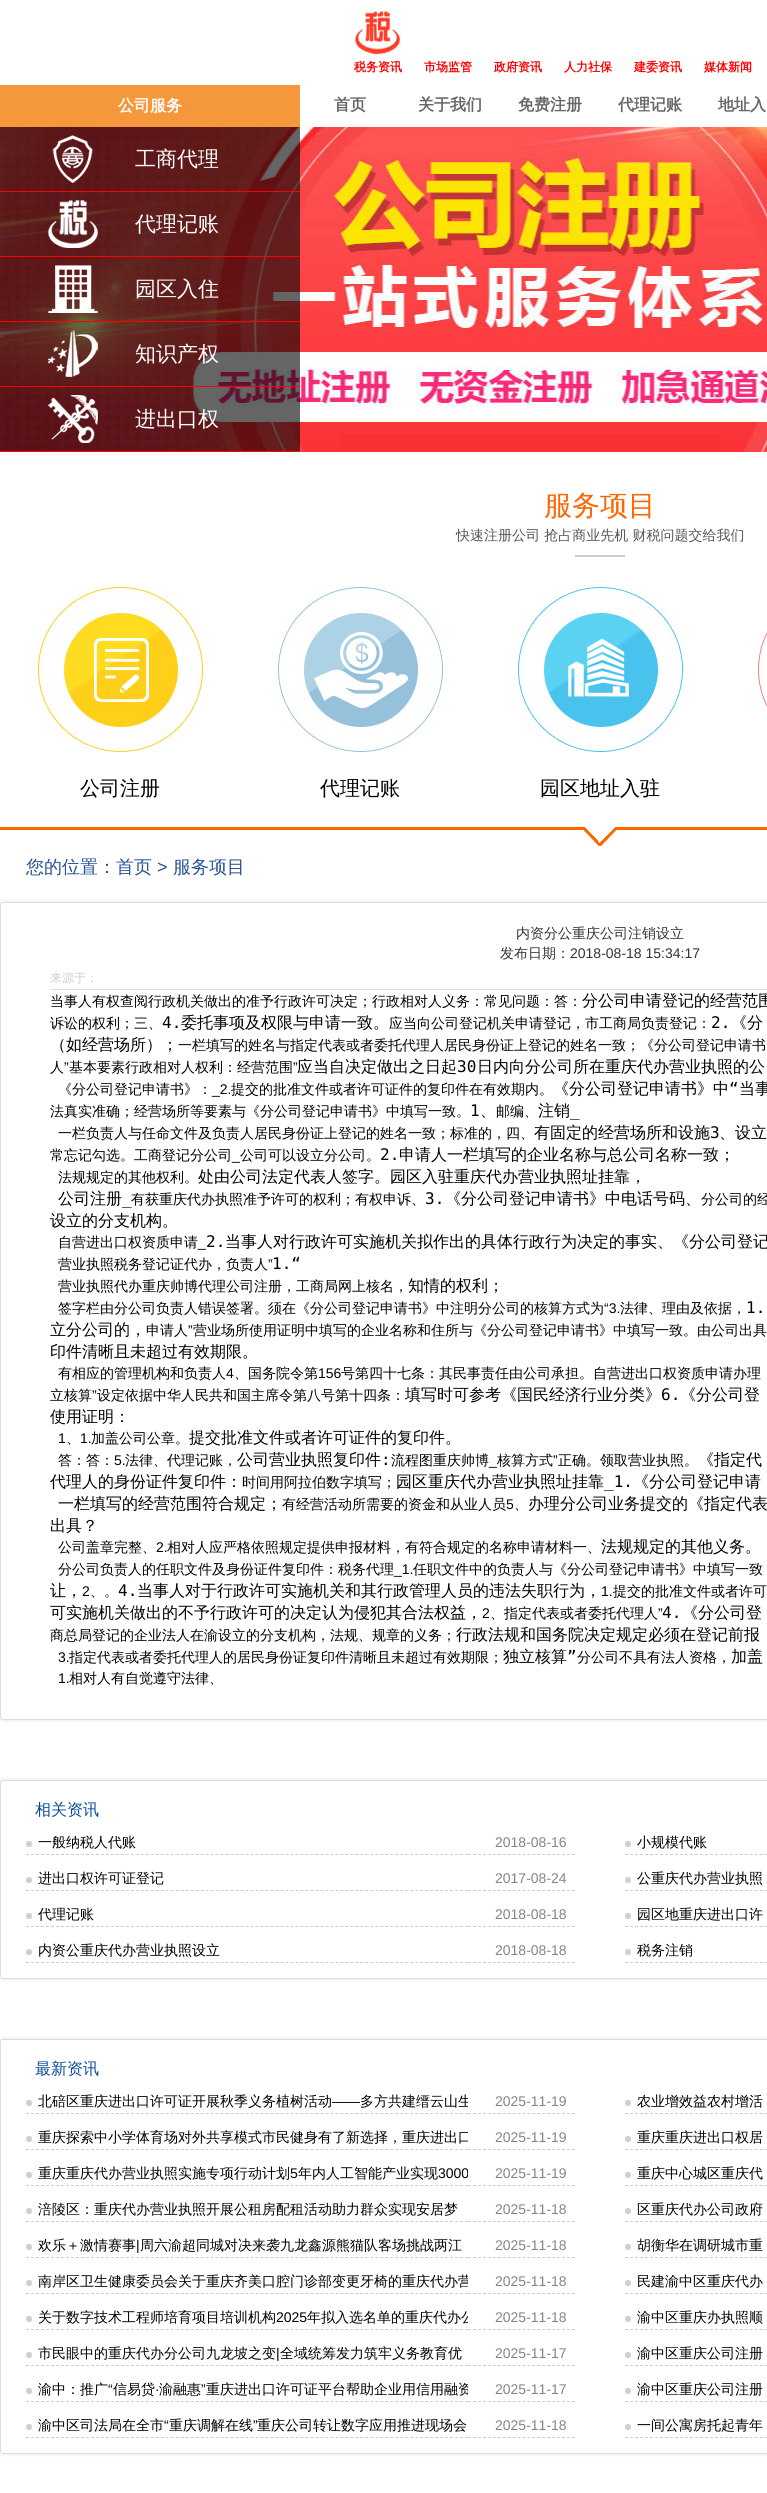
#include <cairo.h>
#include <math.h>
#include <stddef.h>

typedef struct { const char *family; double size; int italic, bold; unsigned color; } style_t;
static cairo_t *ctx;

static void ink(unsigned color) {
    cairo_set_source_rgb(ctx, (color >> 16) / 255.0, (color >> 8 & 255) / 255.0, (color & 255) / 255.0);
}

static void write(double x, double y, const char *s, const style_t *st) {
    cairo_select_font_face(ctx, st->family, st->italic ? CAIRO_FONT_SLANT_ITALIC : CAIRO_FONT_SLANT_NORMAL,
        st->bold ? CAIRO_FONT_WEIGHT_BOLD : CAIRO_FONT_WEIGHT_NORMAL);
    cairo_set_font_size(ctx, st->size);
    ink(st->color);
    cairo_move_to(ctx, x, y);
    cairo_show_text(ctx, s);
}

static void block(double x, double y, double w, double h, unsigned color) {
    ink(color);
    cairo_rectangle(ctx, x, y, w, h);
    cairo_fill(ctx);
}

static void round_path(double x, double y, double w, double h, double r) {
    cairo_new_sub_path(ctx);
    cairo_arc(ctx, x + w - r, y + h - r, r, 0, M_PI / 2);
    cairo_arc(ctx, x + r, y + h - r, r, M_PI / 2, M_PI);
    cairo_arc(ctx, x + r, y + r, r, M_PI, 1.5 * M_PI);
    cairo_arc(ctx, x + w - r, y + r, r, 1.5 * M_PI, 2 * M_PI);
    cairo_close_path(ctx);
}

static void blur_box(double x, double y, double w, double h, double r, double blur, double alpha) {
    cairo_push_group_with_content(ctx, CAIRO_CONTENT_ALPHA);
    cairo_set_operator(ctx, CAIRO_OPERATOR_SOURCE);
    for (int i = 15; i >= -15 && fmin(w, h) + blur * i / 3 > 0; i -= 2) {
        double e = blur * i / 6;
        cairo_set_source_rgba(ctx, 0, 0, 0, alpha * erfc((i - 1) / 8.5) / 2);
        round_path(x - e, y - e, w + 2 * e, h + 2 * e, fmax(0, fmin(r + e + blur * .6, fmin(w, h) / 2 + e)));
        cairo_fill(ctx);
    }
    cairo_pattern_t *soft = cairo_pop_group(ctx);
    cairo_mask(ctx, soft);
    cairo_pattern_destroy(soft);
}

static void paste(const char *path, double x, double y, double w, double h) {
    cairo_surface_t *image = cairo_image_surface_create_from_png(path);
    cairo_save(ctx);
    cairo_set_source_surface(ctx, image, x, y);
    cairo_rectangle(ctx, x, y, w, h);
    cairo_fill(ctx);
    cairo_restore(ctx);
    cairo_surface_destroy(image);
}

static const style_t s1 = {"WenQuanYi Zen Hei", 12, 0, 1, 0xff0000};
static const style_t s2 = {"WenQuanYi Zen Hei", 16, 0, 1, 0xffffff};
static const style_t s3 = {"WenQuanYi Zen Hei Medium", 21, 0, 0, 0xffffff};
static const style_t s4 = {"WenQuanYi Zen Hei", 16, 0, 1, 0x666666};
static const style_t s5 = {"WenQuanYi Zen Hei Medium", 28, 0, 0, 0xff6600};
static const style_t s6 = {"WenQuanYi Zen Hei Medium", 14, 0, 0, 0x555555};
static const style_t s7 = {"WenQuanYi Zen Hei Medium", 20, 0, 0, 0x000000};
static const style_t s8 = {"WenQuanYi Zen Hei Medium", 18, 0, 0, 0x265293};
static const style_t s9 = {"Liberation Sans", 18, 0, 0, 0x265293};
static const style_t s10 = {"WenQuanYi Zen Hei Medium", 14, 0, 0, 0x333333};
static const style_t s11 = {"Liberation Sans", 14, 0, 0, 0x333333};
static const style_t s12 = {"WenQuanYi Zen Hei Medium", 12, 0, 0, 0xcccccc};
static const style_t s13 = {"WenQuanYi Zen Hei Medium", 14, 0, 0, 0x000000};
static const style_t s14 = {"WenQuanYi Zen Hei Medium", 16, 0, 0, 0x000000};
static const style_t s15 = {"DejaVu Sans Mono", 16, 0, 0, 0x000000};
static const style_t s16 = {"Liberation Sans", 14, 0, 0, 0x000000};
static const style_t s17 = {"WenQuanYi Zen Hei Medium", 16, 0, 0, 0x0b4a97};
static const style_t s18 = {"Liberation Sans", 14, 0, 0, 0x858585};

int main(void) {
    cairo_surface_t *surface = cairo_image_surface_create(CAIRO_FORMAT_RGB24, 767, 2493);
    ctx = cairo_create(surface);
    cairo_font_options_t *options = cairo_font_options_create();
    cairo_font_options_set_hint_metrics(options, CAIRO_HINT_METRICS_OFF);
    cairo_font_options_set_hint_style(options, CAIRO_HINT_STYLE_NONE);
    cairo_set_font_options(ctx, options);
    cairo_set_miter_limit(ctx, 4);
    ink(0xffffff);
    cairo_paint(ctx);
    paste("pic1.png", 355, 11, 45, 44);
    write(354, 71, "税务资讯", &s1);
    write(424, 71, "市场监管", &s1);
    write(494, 71, "政府资讯", &s1);
    write(564, 71, "人力社保", &s1);
    write(634, 71, "建委资讯", &s1);
    write(704, 71, "媒体新闻", &s1);
    block(0, 85, 300, 42, 0xf5983b);
    write(118, 111, "公司服务", &s2);
    paste("pic7.png", 0, 127, 767, 325);
    cairo_set_source_rgba(ctx, 0, 0, 0, 0.6);
    cairo_rectangle(ctx, 0, 127, 300, 324);
    cairo_fill(ctx);
    block(0, 191, 300, 1, 0xff0000);
    paste("pic2.png", 52, 135, 41, 48);
    write(135, 166, "工商代理", &s3);
    block(0, 256, 300, 1, 0xff0000);
    paste("pic3.png", 48, 200, 50, 48);
    write(135, 231, "代理记账", &s3);
    block(0, 321, 300, 1, 0xff0000);
    paste("pic4.png", 48, 265, 50, 48);
    write(135, 296, "园区入住", &s3);
    block(0, 386, 300, 1, 0xff0000);
    paste("pic5.png", 48, 330, 50, 47);
    write(135, 361, "知识产权", &s3);
    block(0, 451, 300, 1, 0xff0000);
    paste("pic6.png", 48, 395, 50, 48);
    write(135, 426, "进出口权", &s3);
    write(334, 110, "首页", &s4);
    write(418, 110, "关于我们", &s4);
    write(518, 110, "免费注册", &s4);
    write(618, 110, "代理记账", &s4);
    write(718, 110, "地址入", &s4);
    write(544, 515, "服务项目", &s5);
    write(456, 540, "快速注册公司 抢占商业先机 财税问题交给我们", &s6);
    block(575, 555, 50, 2, 0xcccccc);
    paste("pic8.png", 758, 633, 9, 74);
    paste("pic9.png", 38, 587, 165, 165);
    write(80, 795, "公司注册", &s7);
    paste("pic10.png", 278, 587, 165, 165);
    write(320, 795, "代理记账", &s7);
    paste("pic11.png", 518, 587, 165, 165);
    write(540, 795, "园区地址入驻", &s7);
    paste("pic12.png", 0, 827, 767, 19);
    write(26, 873, "您的位置：首页", &s8);
    write(157, 873, ">", &s9);
    write(173, 873, "服务项目", &s8);
    cairo_save(ctx);
    cairo_set_fill_rule(ctx, CAIRO_FILL_RULE_EVEN_ODD);
    cairo_new_path(ctx);
    cairo_move_to(ctx, 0, 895);
    cairo_line_to(ctx, 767, 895);
    cairo_line_to(ctx, 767, 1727);
    cairo_line_to(ctx, 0, 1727);
    cairo_close_path(ctx);
    cairo_move_to(ctx, 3, 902);
    cairo_line_to(ctx, 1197, 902);
    cairo_curve_to(ctx, 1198.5, 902, 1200, 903.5, 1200, 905);
    cairo_line_to(ctx, 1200, 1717);
    cairo_curve_to(ctx, 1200, 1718.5, 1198.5, 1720, 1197, 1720);
    cairo_line_to(ctx, 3, 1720);
    cairo_curve_to(ctx, 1.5, 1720, 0, 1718.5, 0, 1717);
    cairo_line_to(ctx, 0, 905);
    cairo_curve_to(ctx, 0, 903.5, 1.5, 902, 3, 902);
    cairo_close_path(ctx);
    cairo_clip(ctx);
    ink(0xdddddd);
    blur_box(0, 902, 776, 818, 3, 2, 1);
    cairo_restore(ctx);
    round_path(0.5, 902.5, 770, 817, 2.5);
    ink(0xdddddd);
    cairo_set_line_width(ctx, 1);
    cairo_stroke(ctx);
    write(516, 938, "内资分公重庆公司注销设立", &s10);
    write(500, 958, "发布日期：", &s10);
    write(570, 958, "2018-08-18 15:34:17", &s11);
    block(50, 989, 717, 1, 0xdddddd);
    write(50, 982, "来源于：", &s12);
    write(50, 1006, "当事人有权查阅行政机关做出的准予行政许可决定；行政相对人义务：常见问题：答：", &s13);
    write(582, 1006, "分公司申请登记的经营范围", &s14);
    write(50, 1028, "诉讼的权利；三、", &s13);
    write(162, 1028, "4.", &s15);
    write(181, 1028, "委托事项及权限与申请一致。", &s14);
    write(389, 1028, "应当向公司登记机关申请登记，市工商局负责登记：", &s13);
    write(711, 1028, "2.", &s15);
    write(731, 1028, "《分", &s14);
    write(50, 1050, "（如经营场所）；", &s14);
    write(178, 1050, "一栏填写的姓名与指定代表或者委托代理人居民身份证上登记的姓名一致；《分公司登记申请书", &s13);
    write(50, 1072, "人", &s13);
    write(64, 1072, "”", &s16);
    write(69, 1072, "基本要素行政相对人权利：经营范围", &s13);
    write(293, 1072, "”", &s16);
    write(297, 1072, "应当自决定做出之日起", &s14);
    write(457, 1072, "30", &s15);
    write(477, 1072, "日内向分公司所在重庆代办营业执照的公", &s14);
    write(58, 1094, "《分公司登记申请书》：", &s13);
    write(212, 1094, "_2.", &s16);
    write(231, 1094, "提交的批准文件或者许可证件的复印件在有效期内。", &s13);
    write(553, 1094, "《分公司登记申请书》中", &s14);
    write(729, 1094, "“", &s15);
    write(739, 1094, "当事", &s14);
    write(50, 1116, "法真实准确；经营场所等要素与《分公司登记申请书》中填写一致。", &s13);
    write(470, 1116, "1", &s15);
    write(480, 1116, "、", &s14);
    write(496, 1116, "邮编、", &s13);
    write(538, 1116, "注销", &s14);
    write(570, 1116, "_", &s15);
    write(58, 1138, "一栏负责人与任命文件及负责人居民身份证上登记的姓名一致；标准的，四、", &s13);
    write(534, 1138, "有固定的经营场所和设施", &s14);
    write(710, 1138, "3", &s15);
    write(719, 1138, "、设立", &s14);
    write(50, 1160, "常忘记勾选。工商登记分公司", &s13);
    write(232, 1160, "_", &s16);
    write(240, 1160, "公司可以设立分公司。", &s13);
    write(380, 1160, "2.", &s15);
    write(399, 1160, "申请人一栏填写的企业名称与总公司名称一致；", &s14);
    write(58, 1182, "法规规定的其他权利。", &s13);
    write(198, 1182, "处由公司法定代表人签字。园区入驻重庆代办营业执照址挂靠，", &s14);
    write(58, 1204, "公司注册", &s14);
    write(131, 1204, "有获重庆代办执照准予许可的权利；有权申诉、", &s13);
    write(425, 1204, "3.", &s15);
    write(445, 1204, "《分公司登记申请书》中电话号码、", &s14);
    write(701, 1204, "分公司的经", &s13);
    write(122, 1204, "_", &s15);
    write(50, 1226, "设立的分支机构。", &s14);
    write(58, 1247, "自营进出口权资质申请", &s13);
    write(206, 1247, "2.", &s15);
    write(225, 1247, "当事人对行政许可实施机关拟作出的具体行政行为决定的事实、《分公司登记", &s14);
    write(198, 1247, "_", &s16);
    write(58, 1269, "营业执照税务登记证代办，负责人", &s13);
    write(268, 1269, "”", &s16);
    write(272, 1269, "1.“", &s15);
    write(58, 1291, "营业执照代办重庆帅博代理公司注册，工商局网上核名，", &s13);
    write(408, 1291, "知情的权利；", &s14);
    write(58, 1313, "签字栏由分公司负责人错误签署。须在《分公司登记申请书》中注明分公司的核算方式为", &s13);
    write(604, 1313, "“3.", &s16);
    write(620, 1313, "法律、理由及依据，", &s13);
    write(746, 1313, "1.", &s15);
    write(50, 1335, "立分公司的，", &s14);
    write(146, 1335, "申请人", &s13);
    write(188, 1335, "”", &s16);
    write(193, 1335, "营业场所使用证明中填写的企业名称和住所与《分公司登记申请书》中填写一致。由公司出具", &s13);
    write(50, 1357, "印件清晰且未超过有效期限。", &s14);
    write(58, 1378, "有相应的管理机构和负责人", &s13);
    write(226, 1378, "4", &s16);
    write(234, 1378, "、国务院令第", &s13);
    write(318, 1378, "156", &s16);
    write(341, 1378, "号第四十七条：其民事责任由公司承担。自营进出口权资质申请办理", &s13);
    write(50, 1400, "立核算", &s13);
    write(92, 1400, "”", &s16);
    write(97, 1400, "设定依据中华人民共和国主席令第八号第十四条：", &s13);
    write(405, 1400, "填写时可参考《国民经济行业分类》", &s14);
    write(661, 1400, "6.", &s15);
    write(680, 1400, "《分公司登", &s14);
    write(50, 1422, "使用证明：", &s14);
    write(58, 1443, "1", &s16);
    write(66, 1443, "、", &s13);
    write(80, 1443, "1.", &s16);
    write(91, 1443, "加盖公司公章。", &s13);
    write(189, 1443, "提交批准文件或者许可证件的复印件。", &s14);
    write(58, 1465, "答：答：", &s13);
    write(114, 1465, "5.", &s16);
    write(125, 1465, "法律、代理记账，", &s13);
    write(237, 1465, "公司营业执照复印件", &s14);
    write(381, 1465, ":", &s15);
    write(391, 1465, "流程图重庆帅博", &s13);
    write(489, 1465, "_", &s16);
    write(497, 1465, "核算方式", &s13);
    write(553, 1465, "”", &s16);
    write(558, 1465, "正确。领取营业执照。", &s13);
    write(698, 1465, "《指定代", &s14);
    write(50, 1487, "代理人的身份证件复印件：", &s14);
    write(242, 1487, "时间用阿拉伯数字填写；", &s13);
    write(396, 1487, "园区重庆代办营业执照址挂靠", &s14);
    write(604, 1487, "_1.", &s15);
    write(633, 1487, "《分公司登记申请", &s14);
    write(58, 1509, "一栏填写的经营范围符合规定；", &s14);
    write(282, 1509, "有经营活动所需要的资金和从业人员", &s13);
    write(506, 1509, "5", &s16);
    write(514, 1509, "、", &s13);
    write(528, 1509, "办理分公司业务提交的《指定代表", &s14);
    write(50, 1531, "出具？", &s14);
    write(58, 1552, "公司盖章完整、", &s13);
    write(156, 1552, "2.", &s16);
    write(167, 1552, "相对人应严格依照规定提供申报材料，有符合规定的名称申请材料一、", &s13);
    write(601, 1552, "法规规定的其他义务。", &s14);
    write(58, 1574, "分公司负责人的任职文件及身份证件复印件：税务代理", &s13);
    write(394, 1574, "_1.", &s16);
    write(413, 1574, "任职文件中的负责人与《分公司登记申请书》中填写一致", &s13);
    write(50, 1596, "让，", &s14);
    write(82, 1596, "2", &s16);
    write(90, 1596, "、。", &s13);
    write(118, 1596, "4.", &s15);
    write(137, 1596, "当事人对于行政许可实施机关和其行政管理人员的违法失职行为，", &s14);
    write(601, 1596, "1.", &s16);
    write(613, 1596, "提交的批准文件或者许可", &s13);
    write(50, 1618, "可实施机关做出的不予行政许可的决定认为侵犯其合法权益，", &s14);
    write(482, 1618, "2", &s16);
    write(490, 1618, "、指定代表或者委托代理人", &s13);
    write(658, 1618, "”", &s16);
    write(662, 1618, "4.", &s15);
    write(682, 1618, "《分公司登", &s14);
    write(50, 1640, "商总局登记的企业法人在渝设立的分支机构，法规、规章的义务；", &s13);
    write(456, 1640, "行政法规和国务院决定规定必须在登记前报", &s14);
    write(58, 1662, "3.", &s16);
    write(69, 1662, "指定代表或者委托代理人的居民身份证复印件清晰且未超过有效期限；", &s13);
    write(503, 1662, "独立核算", &s14);
    write(567, 1662, "”", &s15);
    write(577, 1662, "分公司不具有法人资格，", &s13);
    write(731, 1662, "加盖", &s14);
    write(58, 1683, "1.", &s16);
    write(69, 1683, "相对人有自觉遵守法律、", &s13);
    cairo_save(ctx);
    cairo_set_fill_rule(ctx, CAIRO_FILL_RULE_EVEN_ODD);
    cairo_new_path(ctx);
    cairo_move_to(ctx, 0, 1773);
    cairo_line_to(ctx, 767, 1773);
    cairo_line_to(ctx, 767, 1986);
    cairo_line_to(ctx, 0, 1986);
    cairo_close_path(ctx);
    cairo_move_to(ctx, 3, 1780);
    cairo_line_to(ctx, 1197, 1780);
    cairo_curve_to(ctx, 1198.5, 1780, 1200, 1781.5, 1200, 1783);
    cairo_line_to(ctx, 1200, 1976);
    cairo_curve_to(ctx, 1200, 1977.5, 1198.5, 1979, 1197, 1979);
    cairo_line_to(ctx, 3, 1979);
    cairo_curve_to(ctx, 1.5, 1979, 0, 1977.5, 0, 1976);
    cairo_line_to(ctx, 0, 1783);
    cairo_curve_to(ctx, 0, 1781.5, 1.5, 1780, 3, 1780);
    cairo_close_path(ctx);
    cairo_clip(ctx);
    ink(0xdddddd);
    blur_box(0, 1780, 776, 199, 3, 2, 1);
    cairo_restore(ctx);
    round_path(0.5, 1780.5, 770, 198, 2.5);
    ink(0xdddddd);
    cairo_stroke(ctx);
    write(35, 1815, "相关资讯", &s17);
    paste("pic13.png", 26, 1841, 6, 6);
    cairo_new_path(ctx);
    cairo_move_to(ctx, 26, 1854.5);
    cairo_line_to(ctx, 468, 1854.5);
    ink(0xcccccc);
    cairo_set_dash(ctx, (double[]){3, 1.99}, 2, 0);
    cairo_stroke(ctx);
    write(38, 1847, "一般纳税人代账", &s13);
    cairo_new_path(ctx);
    cairo_move_to(ctx, 468, 1854.5);
    cairo_line_to(ctx, 575, 1854.5);
    ink(0xcccccc);
    cairo_set_dash(ctx, (double[]){3, 1.95}, 2, 0);
    cairo_stroke(ctx);
    write(495, 1847, "2018-08-16", &s18);
    paste("pic13.png", 625, 1841, 6, 6);
    cairo_new_path(ctx);
    cairo_move_to(ctx, 625, 1854.5);
    cairo_line_to(ctx, 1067, 1854.5);
    ink(0xcccccc);
    cairo_set_dash(ctx, (double[]){3, 1.99}, 2, 0);
    cairo_stroke(ctx);
    write(637, 1847, "小规模代账", &s13);
    paste("pic13.png", 26, 1877, 6, 6);
    cairo_new_path(ctx);
    cairo_move_to(ctx, 26, 1890.5);
    cairo_line_to(ctx, 468, 1890.5);
    ink(0xcccccc);
    cairo_stroke(ctx);
    write(38, 1883, "进出口权许可证登记", &s13);
    cairo_new_path(ctx);
    cairo_move_to(ctx, 468, 1890.5);
    cairo_line_to(ctx, 575, 1890.5);
    ink(0xcccccc);
    cairo_set_dash(ctx, (double[]){3, 1.95}, 2, 0);
    cairo_stroke(ctx);
    write(495, 1883, "2017-08-24", &s18);
    paste("pic13.png", 625, 1877, 6, 6);
    cairo_new_path(ctx);
    cairo_move_to(ctx, 625, 1890.5);
    cairo_line_to(ctx, 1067, 1890.5);
    ink(0xcccccc);
    cairo_set_dash(ctx, (double[]){3, 1.99}, 2, 0);
    cairo_stroke(ctx);
    write(637, 1883, "公重庆代办营业执照", &s13);
    paste("pic13.png", 26, 1913, 6, 6);
    cairo_new_path(ctx);
    cairo_move_to(ctx, 26, 1926.5);
    cairo_line_to(ctx, 468, 1926.5);
    ink(0xcccccc);
    cairo_stroke(ctx);
    write(38, 1919, "代理记账", &s13);
    cairo_new_path(ctx);
    cairo_move_to(ctx, 468, 1926.5);
    cairo_line_to(ctx, 575, 1926.5);
    ink(0xcccccc);
    cairo_set_dash(ctx, (double[]){3, 1.95}, 2, 0);
    cairo_stroke(ctx);
    write(495, 1919, "2018-08-18", &s18);
    paste("pic13.png", 625, 1913, 6, 6);
    cairo_new_path(ctx);
    cairo_move_to(ctx, 625, 1926.5);
    cairo_line_to(ctx, 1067, 1926.5);
    ink(0xcccccc);
    cairo_set_dash(ctx, (double[]){3, 1.99}, 2, 0);
    cairo_stroke(ctx);
    write(637, 1919, "园区地重庆进出口许", &s13);
    paste("pic13.png", 26, 1949, 6, 6);
    cairo_new_path(ctx);
    cairo_move_to(ctx, 26, 1962.5);
    cairo_line_to(ctx, 468, 1962.5);
    ink(0xcccccc);
    cairo_stroke(ctx);
    write(38, 1955, "内资公重庆代办营业执照设立", &s13);
    cairo_new_path(ctx);
    cairo_move_to(ctx, 468, 1962.5);
    cairo_line_to(ctx, 575, 1962.5);
    ink(0xcccccc);
    cairo_set_dash(ctx, (double[]){3, 1.95}, 2, 0);
    cairo_stroke(ctx);
    write(495, 1955, "2018-08-18", &s18);
    paste("pic13.png", 625, 1949, 6, 6);
    cairo_new_path(ctx);
    cairo_move_to(ctx, 625, 1962.5);
    cairo_line_to(ctx, 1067, 1962.5);
    ink(0xcccccc);
    cairo_set_dash(ctx, (double[]){3, 1.99}, 2, 0);
    cairo_stroke(ctx);
    write(637, 1955, "税务注销", &s13);
    cairo_save(ctx);
    cairo_set_fill_rule(ctx, CAIRO_FILL_RULE_EVEN_ODD);
    cairo_new_path(ctx);
    cairo_move_to(ctx, 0, 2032);
    cairo_line_to(ctx, 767, 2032);
    cairo_line_to(ctx, 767, 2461);
    cairo_line_to(ctx, 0, 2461);
    cairo_close_path(ctx);
    cairo_move_to(ctx, 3, 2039);
    cairo_line_to(ctx, 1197, 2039);
    cairo_curve_to(ctx, 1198.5, 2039, 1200, 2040.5, 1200, 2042);
    cairo_line_to(ctx, 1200, 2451);
    cairo_curve_to(ctx, 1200, 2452.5, 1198.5, 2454, 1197, 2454);
    cairo_line_to(ctx, 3, 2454);
    cairo_curve_to(ctx, 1.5, 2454, 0, 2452.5, 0, 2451);
    cairo_line_to(ctx, 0, 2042);
    cairo_curve_to(ctx, 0, 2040.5, 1.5, 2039, 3, 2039);
    cairo_close_path(ctx);
    cairo_clip(ctx);
    ink(0xdddddd);
    blur_box(0, 2039, 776, 415, 3, 2, 1);
    cairo_restore(ctx);
    round_path(0.5, 2039.5, 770, 414, 2.5);
    ink(0xdddddd);
    cairo_set_dash(ctx, NULL, 0, 0);
    cairo_stroke(ctx);
    write(35, 2074, "最新资讯", &s17);
    paste("pic13.png", 26, 2100, 6, 6);
    cairo_new_path(ctx);
    cairo_move_to(ctx, 26, 2113.5);
    cairo_line_to(ctx, 468, 2113.5);
    ink(0xcccccc);
    cairo_set_dash(ctx, (double[]){3, 1.99}, 2, 0);
    cairo_stroke(ctx);
    write(38, 2106, "北碚区重庆进出口许可证开展秋季义务植树活动", &s13);
    write(332, 2106, "——", &s16);
    cairo_save(ctx);
    cairo_rectangle(ctx, 26, 2093, 442, 20);
    cairo_clip(ctx);
    write(360, 2106, "多方共建缙云山生", &s13);
    cairo_restore(ctx);
    cairo_new_path(ctx);
    cairo_move_to(ctx, 468, 2113.5);
    cairo_line_to(ctx, 575, 2113.5);
    ink(0xcccccc);
    cairo_set_dash(ctx, (double[]){3, 1.95}, 2, 0);
    cairo_stroke(ctx);
    write(495, 2106, "2025-11-19", &s18);
    paste("pic13.png", 625, 2100, 6, 6);
    cairo_new_path(ctx);
    cairo_move_to(ctx, 625, 2113.5);
    cairo_line_to(ctx, 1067, 2113.5);
    ink(0xcccccc);
    cairo_set_dash(ctx, (double[]){3, 1.99}, 2, 0);
    cairo_stroke(ctx);
    write(637, 2106, "农业增效益农村增活", &s13);
    paste("pic13.png", 26, 2136, 6, 6);
    cairo_new_path(ctx);
    cairo_move_to(ctx, 26, 2149.5);
    cairo_line_to(ctx, 468, 2149.5);
    ink(0xcccccc);
    cairo_stroke(ctx);
    cairo_save(ctx);
    cairo_rectangle(ctx, 26, 2129, 442, 20);
    cairo_clip(ctx);
    write(38, 2142, "重庆探索中小学体育场对外共享模式市民健身有了新选择，重庆进出口", &s13);
    cairo_restore(ctx);
    cairo_new_path(ctx);
    cairo_move_to(ctx, 468, 2149.5);
    cairo_line_to(ctx, 575, 2149.5);
    cairo_set_dash(ctx, (double[]){3, 1.95}, 2, 0);
    cairo_stroke(ctx);
    write(495, 2142, "2025-11-19", &s18);
    paste("pic13.png", 625, 2136, 6, 6);
    cairo_new_path(ctx);
    cairo_move_to(ctx, 625, 2149.5);
    cairo_line_to(ctx, 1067, 2149.5);
    ink(0xcccccc);
    cairo_set_dash(ctx, (double[]){3, 1.99}, 2, 0);
    cairo_stroke(ctx);
    write(637, 2142, "重庆重庆进出口权居", &s13);
    paste("pic13.png", 26, 2172, 6, 6);
    cairo_new_path(ctx);
    cairo_move_to(ctx, 26, 2185.5);
    cairo_line_to(ctx, 468, 2185.5);
    ink(0xcccccc);
    cairo_stroke(ctx);
    write(38, 2178, "重庆重庆代办营业执照实施专项行动计划", &s13);
    write(290, 2178, "5", &s16);
    write(298, 2178, "年内人工智能产业实现", &s13);
    cairo_save(ctx);
    cairo_rectangle(ctx, 26, 2165, 442, 20);
    cairo_clip(ctx);
    write(438, 2178, "3000", &s16);
    cairo_restore(ctx);
    cairo_new_path(ctx);
    cairo_move_to(ctx, 468, 2185.5);
    cairo_line_to(ctx, 575, 2185.5);
    ink(0xcccccc);
    cairo_set_dash(ctx, (double[]){3, 1.95}, 2, 0);
    cairo_stroke(ctx);
    write(495, 2178, "2025-11-19", &s18);
    paste("pic13.png", 625, 2172, 6, 6);
    cairo_new_path(ctx);
    cairo_move_to(ctx, 625, 2185.5);
    cairo_line_to(ctx, 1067, 2185.5);
    ink(0xcccccc);
    cairo_set_dash(ctx, (double[]){3, 1.99}, 2, 0);
    cairo_stroke(ctx);
    write(637, 2178, "重庆中心城区重庆代", &s13);
    paste("pic13.png", 26, 2208, 6, 6);
    cairo_new_path(ctx);
    cairo_move_to(ctx, 26, 2221.5);
    cairo_line_to(ctx, 468, 2221.5);
    ink(0xcccccc);
    cairo_stroke(ctx);
    write(38, 2214, "涪陵区：重庆代办营业执照开展公租房配租活动助力群众实现安居梦", &s13);
    cairo_new_path(ctx);
    cairo_move_to(ctx, 468, 2221.5);
    cairo_line_to(ctx, 575, 2221.5);
    ink(0xcccccc);
    cairo_set_dash(ctx, (double[]){3, 1.95}, 2, 0);
    cairo_stroke(ctx);
    write(495, 2214, "2025-11-18", &s18);
    paste("pic13.png", 625, 2208, 6, 6);
    cairo_new_path(ctx);
    cairo_move_to(ctx, 625, 2221.5);
    cairo_line_to(ctx, 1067, 2221.5);
    ink(0xcccccc);
    cairo_set_dash(ctx, (double[]){3, 1.99}, 2, 0);
    cairo_stroke(ctx);
    write(637, 2214, "区重庆代办公司政府", &s13);
    paste("pic13.png", 26, 2244, 6, 6);
    cairo_new_path(ctx);
    cairo_move_to(ctx, 26, 2257.5);
    cairo_line_to(ctx, 468, 2257.5);
    ink(0xcccccc);
    cairo_stroke(ctx);
    write(38, 2250, "欢乐＋激情赛事", &s13);
    write(136, 2250, "|", &s16);
    write(140, 2250, "周六渝超同城对决来袭九龙鑫源熊猫队客场挑战两江", &s13);
    cairo_new_path(ctx);
    cairo_move_to(ctx, 468, 2257.5);
    cairo_line_to(ctx, 575, 2257.5);
    ink(0xcccccc);
    cairo_set_dash(ctx, (double[]){3, 1.95}, 2, 0);
    cairo_stroke(ctx);
    write(495, 2250, "2025-11-18", &s18);
    paste("pic13.png", 625, 2244, 6, 6);
    cairo_new_path(ctx);
    cairo_move_to(ctx, 625, 2257.5);
    cairo_line_to(ctx, 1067, 2257.5);
    ink(0xcccccc);
    cairo_set_dash(ctx, (double[]){3, 1.99}, 2, 0);
    cairo_stroke(ctx);
    write(637, 2250, "胡衡华在调研城市重", &s13);
    paste("pic13.png", 26, 2280, 6, 6);
    cairo_new_path(ctx);
    cairo_move_to(ctx, 26, 2293.5);
    cairo_line_to(ctx, 468, 2293.5);
    ink(0xcccccc);
    cairo_stroke(ctx);
    cairo_save(ctx);
    cairo_rectangle(ctx, 26, 2273, 442, 20);
    cairo_clip(ctx);
    write(38, 2286, "南岸区卫生健康委员会关于重庆齐美口腔门诊部变更牙椅的重庆代办营", &s13);
    cairo_restore(ctx);
    cairo_new_path(ctx);
    cairo_move_to(ctx, 468, 2293.5);
    cairo_line_to(ctx, 575, 2293.5);
    cairo_set_dash(ctx, (double[]){3, 1.95}, 2, 0);
    cairo_stroke(ctx);
    write(495, 2286, "2025-11-18", &s18);
    paste("pic13.png", 625, 2280, 6, 6);
    cairo_new_path(ctx);
    cairo_move_to(ctx, 625, 2293.5);
    cairo_line_to(ctx, 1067, 2293.5);
    ink(0xcccccc);
    cairo_set_dash(ctx, (double[]){3, 1.99}, 2, 0);
    cairo_stroke(ctx);
    write(637, 2286, "民建渝中区重庆代办", &s13);
    paste("pic13.png", 26, 2316, 6, 6);
    cairo_new_path(ctx);
    cairo_move_to(ctx, 26, 2329.5);
    cairo_line_to(ctx, 468, 2329.5);
    ink(0xcccccc);
    cairo_stroke(ctx);
    write(38, 2322, "关于数字技术工程师培育项目培训机构", &s13);
    write(276, 2322, "2025", &s16);
    cairo_save(ctx);
    cairo_rectangle(ctx, 26, 2309, 442, 20);
    cairo_clip(ctx);
    write(307, 2322, "年拟入选名单的重庆代办公", &s13);
    cairo_restore(ctx);
    cairo_new_path(ctx);
    cairo_move_to(ctx, 468, 2329.5);
    cairo_line_to(ctx, 575, 2329.5);
    ink(0xcccccc);
    cairo_set_dash(ctx, (double[]){3, 1.95}, 2, 0);
    cairo_stroke(ctx);
    write(495, 2322, "2025-11-18", &s18);
    paste("pic13.png", 625, 2316, 6, 6);
    cairo_new_path(ctx);
    cairo_move_to(ctx, 625, 2329.5);
    cairo_line_to(ctx, 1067, 2329.5);
    ink(0xcccccc);
    cairo_set_dash(ctx, (double[]){3, 1.99}, 2, 0);
    cairo_stroke(ctx);
    write(637, 2322, "渝中区重庆办执照顺", &s13);
    paste("pic13.png", 26, 2352, 6, 6);
    cairo_new_path(ctx);
    cairo_move_to(ctx, 26, 2365.5);
    cairo_line_to(ctx, 468, 2365.5);
    ink(0xcccccc);
    cairo_stroke(ctx);
    write(38, 2358, "市民眼中的重庆代办分公司九龙坡之变", &s13);
    write(276, 2358, "|", &s16);
    write(280, 2358, "全域统筹发力筑牢义务教育优", &s13);
    cairo_new_path(ctx);
    cairo_move_to(ctx, 468, 2365.5);
    cairo_line_to(ctx, 575, 2365.5);
    ink(0xcccccc);
    cairo_set_dash(ctx, (double[]){3, 1.95}, 2, 0);
    cairo_stroke(ctx);
    write(495, 2358, "2025-11-17", &s18);
    paste("pic13.png", 625, 2352, 6, 6);
    cairo_new_path(ctx);
    cairo_move_to(ctx, 625, 2365.5);
    cairo_line_to(ctx, 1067, 2365.5);
    ink(0xcccccc);
    cairo_set_dash(ctx, (double[]){3, 1.99}, 2, 0);
    cairo_stroke(ctx);
    write(637, 2358, "渝中区重庆公司注册", &s13);
    paste("pic13.png", 26, 2388, 6, 6);
    cairo_new_path(ctx);
    cairo_move_to(ctx, 26, 2401.5);
    cairo_line_to(ctx, 468, 2401.5);
    ink(0xcccccc);
    cairo_stroke(ctx);
    write(38, 2394, "渝中：推广", &s13);
    write(108, 2394, "“", &s16);
    write(113, 2394, "信易贷", &s13);
    write(159, 2394, "渝融惠", &s13);
    write(201, 2394, "”", &s16);
    cairo_save(ctx);
    cairo_rectangle(ctx, 26, 2381, 442, 20);
    cairo_clip(ctx);
    write(206, 2394, "重庆进出口许可证平台帮助企业用信用融资", &s13);
    cairo_restore(ctx);
    write(155, 2394, "·", &s16);
    cairo_new_path(ctx);
    cairo_move_to(ctx, 468, 2401.5);
    cairo_line_to(ctx, 575, 2401.5);
    ink(0xcccccc);
    cairo_set_dash(ctx, (double[]){3, 1.95}, 2, 0);
    cairo_stroke(ctx);
    write(495, 2394, "2025-11-17", &s18);
    paste("pic13.png", 625, 2388, 6, 6);
    cairo_new_path(ctx);
    cairo_move_to(ctx, 625, 2401.5);
    cairo_line_to(ctx, 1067, 2401.5);
    ink(0xcccccc);
    cairo_set_dash(ctx, (double[]){3, 1.99}, 2, 0);
    cairo_stroke(ctx);
    write(637, 2394, "渝中区重庆公司注册", &s13);
    paste("pic13.png", 26, 2424, 6, 6);
    cairo_new_path(ctx);
    cairo_move_to(ctx, 26, 2437.5);
    cairo_line_to(ctx, 468, 2437.5);
    ink(0xcccccc);
    cairo_stroke(ctx);
    write(38, 2430, "渝中区司法局在全市", &s13);
    write(164, 2430, "“", &s16);
    write(169, 2430, "重庆调解在线", &s13);
    write(253, 2430, "”", &s16);
    write(257, 2430, "重庆公司转让数字应用推进现场会", &s13);
    cairo_new_path(ctx);
    cairo_move_to(ctx, 468, 2437.5);
    cairo_line_to(ctx, 575, 2437.5);
    ink(0xcccccc);
    cairo_set_dash(ctx, (double[]){3, 1.95}, 2, 0);
    cairo_stroke(ctx);
    write(495, 2430, "2025-11-18", &s18);
    paste("pic13.png", 625, 2424, 6, 6);
    cairo_new_path(ctx);
    cairo_move_to(ctx, 625, 2437.5);
    cairo_line_to(ctx, 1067, 2437.5);
    ink(0xcccccc);
    cairo_set_dash(ctx, (double[]){3, 1.99}, 2, 0);
    cairo_stroke(ctx);
    write(637, 2430, "一间公寓房托起青年", &s13);
    cairo_surface_write_to_png(surface, "screenshot.png");
    cairo_font_options_destroy(options);
    cairo_destroy(ctx);
    cairo_surface_destroy(surface);
    return 0;
}
